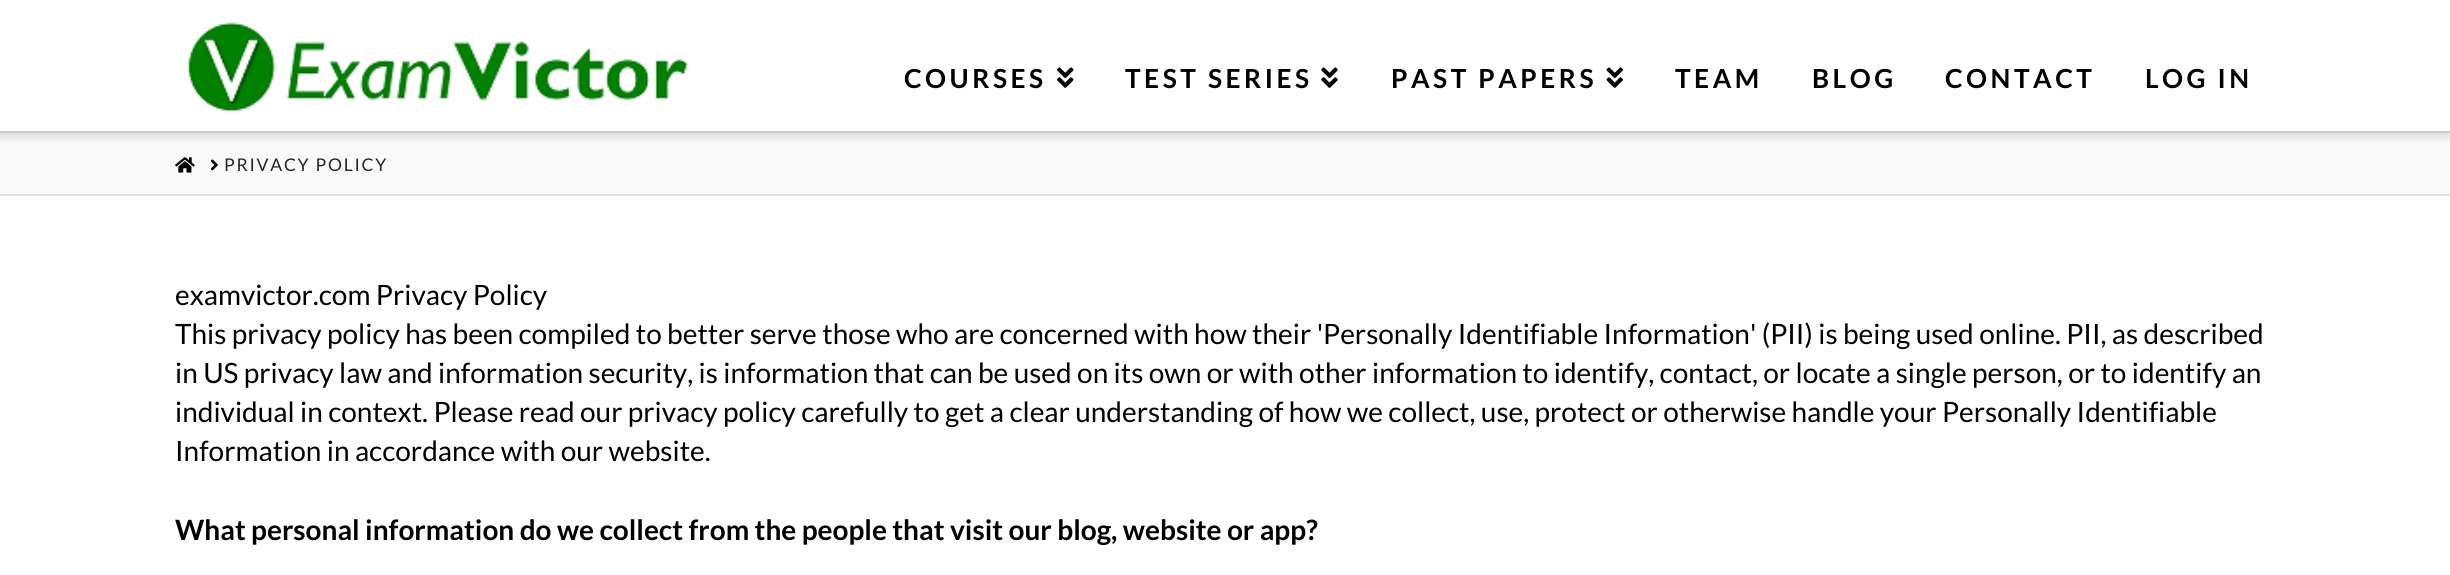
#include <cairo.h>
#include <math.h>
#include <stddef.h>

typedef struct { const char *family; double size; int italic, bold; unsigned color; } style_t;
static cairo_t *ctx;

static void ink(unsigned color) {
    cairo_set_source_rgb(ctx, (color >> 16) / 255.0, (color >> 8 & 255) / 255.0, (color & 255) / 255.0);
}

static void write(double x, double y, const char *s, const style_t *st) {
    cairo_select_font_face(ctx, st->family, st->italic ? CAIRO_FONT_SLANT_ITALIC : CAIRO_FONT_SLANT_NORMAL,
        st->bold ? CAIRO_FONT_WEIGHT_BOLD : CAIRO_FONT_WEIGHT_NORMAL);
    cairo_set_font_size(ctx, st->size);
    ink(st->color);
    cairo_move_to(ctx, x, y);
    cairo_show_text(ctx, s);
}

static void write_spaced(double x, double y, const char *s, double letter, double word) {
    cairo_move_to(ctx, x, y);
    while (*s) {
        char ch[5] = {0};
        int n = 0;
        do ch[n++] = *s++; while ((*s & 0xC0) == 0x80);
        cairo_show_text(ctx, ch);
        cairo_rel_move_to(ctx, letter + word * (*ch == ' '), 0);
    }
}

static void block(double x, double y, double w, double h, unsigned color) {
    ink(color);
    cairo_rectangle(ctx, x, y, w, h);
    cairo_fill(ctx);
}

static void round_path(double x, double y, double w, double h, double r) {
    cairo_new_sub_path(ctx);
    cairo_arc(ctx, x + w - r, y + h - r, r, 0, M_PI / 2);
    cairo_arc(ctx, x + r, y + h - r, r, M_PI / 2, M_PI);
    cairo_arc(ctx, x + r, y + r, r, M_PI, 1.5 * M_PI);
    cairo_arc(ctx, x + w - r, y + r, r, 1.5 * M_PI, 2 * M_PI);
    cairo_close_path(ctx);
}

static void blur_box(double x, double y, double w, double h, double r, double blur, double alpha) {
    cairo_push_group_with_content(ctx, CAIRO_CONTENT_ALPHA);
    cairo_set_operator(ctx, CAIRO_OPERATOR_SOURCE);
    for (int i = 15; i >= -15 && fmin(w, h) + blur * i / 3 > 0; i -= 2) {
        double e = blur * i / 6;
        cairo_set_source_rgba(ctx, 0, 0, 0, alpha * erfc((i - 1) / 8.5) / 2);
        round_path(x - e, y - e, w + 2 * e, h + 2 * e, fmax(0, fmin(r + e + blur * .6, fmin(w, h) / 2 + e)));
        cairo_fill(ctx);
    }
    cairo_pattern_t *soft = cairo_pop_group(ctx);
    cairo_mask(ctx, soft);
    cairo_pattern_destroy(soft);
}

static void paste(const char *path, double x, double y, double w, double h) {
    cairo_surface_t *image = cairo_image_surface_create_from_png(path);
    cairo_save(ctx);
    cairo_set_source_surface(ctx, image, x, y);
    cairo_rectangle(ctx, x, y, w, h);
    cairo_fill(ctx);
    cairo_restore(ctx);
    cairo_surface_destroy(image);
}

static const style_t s1 = {"Lato", 28, 0, 0, 0x000000};
static const style_t s2 = {"Lato", 28, 0, 1, 0x000000};

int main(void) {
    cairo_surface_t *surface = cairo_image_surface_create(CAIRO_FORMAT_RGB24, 2450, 575);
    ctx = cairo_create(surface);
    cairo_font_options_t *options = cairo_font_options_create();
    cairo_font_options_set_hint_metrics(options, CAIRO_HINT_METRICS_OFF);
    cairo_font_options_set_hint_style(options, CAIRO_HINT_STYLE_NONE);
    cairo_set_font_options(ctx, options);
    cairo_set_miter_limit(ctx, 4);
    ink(0xffffff);
    cairo_paint(ctx);
    block(0, 133, 2450, 61, 0xf9f9f9);
    cairo_save(ctx);
    cairo_rectangle(ctx, 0, 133, 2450, 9);
    cairo_clip(ctx);
    ink(0x000000);
    blur_box(0, 4, 2450, 133, 0, 4.5, 0.13);
    cairo_restore(ctx);
    block(0, 131, 2450, 2, 0xcccccc);
    paste("pic1.png", 188, 22, 501, 90);
    cairo_select_font_face(ctx, "Lato", CAIRO_FONT_SLANT_NORMAL, CAIRO_FONT_WEIGHT_BOLD);
    cairo_set_font_size(ctx, 26.25);
    ink(0x000000);
    write_spaced(904, 88, "COURSES", 3.5, 0);
    paste("pic2.png", 1057, 67, 17, 21);
    write_spaced(1125, 88, "TEST SERIES", 3.5, 0);
    paste("pic3.png", 1321, 67, 17, 21);
    write_spaced(1391, 88, "PAST PAPERS", 3.5, 0);
    paste("pic4.png", 1606, 67, 17, 21);
    write_spaced(1675, 88, "TEAM", 3.5, 0);
    write_spaced(1812, 88, "BLOG", 3.5, 0);
    write_spaced(1945, 88, "CONTACT", 3.5, 0);
    write_spaced(2145, 88, "LOG IN", 3.5, 0);
    block(0, 194, 2450, 2, 0xe0e0e0);
    paste("pic5.png", 175, 157, 20, 16);
    paste("pic6.png", 210, 159, 8, 12);
    cairo_select_font_face(ctx, "Lato", CAIRO_FONT_SLANT_NORMAL, CAIRO_FONT_WEIGHT_NORMAL);
    cairo_set_font_size(ctx, 17.5);
    ink(0x272727);
    write_spaced(224, 171, "PRIVACY POLICY", 1.75, 0);
    write(175, 305, "examvictor.com Privacy Policy", &s1);
    write(175, 344, "This privacy policy has been compiled to better serve those who are concerned with how their 'Personally Identifiable Information' (PII) is being used online. PII, as described", &s1);
    write(175, 383, "in US privacy law and information security, is information that can be used on its own or with other information to identify, contact, or locate a single person, or to identify an", &s1);
    write(175, 422, "individual in context. Please read our privacy policy carefully to get a clear understanding of how we collect, use, protect or otherwise handle your Personally Identifiable", &s1);
    write(175, 461, "Information in accordance with our website.", &s1);
    write(175, 540, "What personal information do we collect from the people that visit our blog, website or app?", &s2);
    cairo_surface_write_to_png(surface, "screenshot.png");
    cairo_font_options_destroy(options);
    cairo_destroy(ctx);
    cairo_surface_destroy(surface);
    return 0;
}
